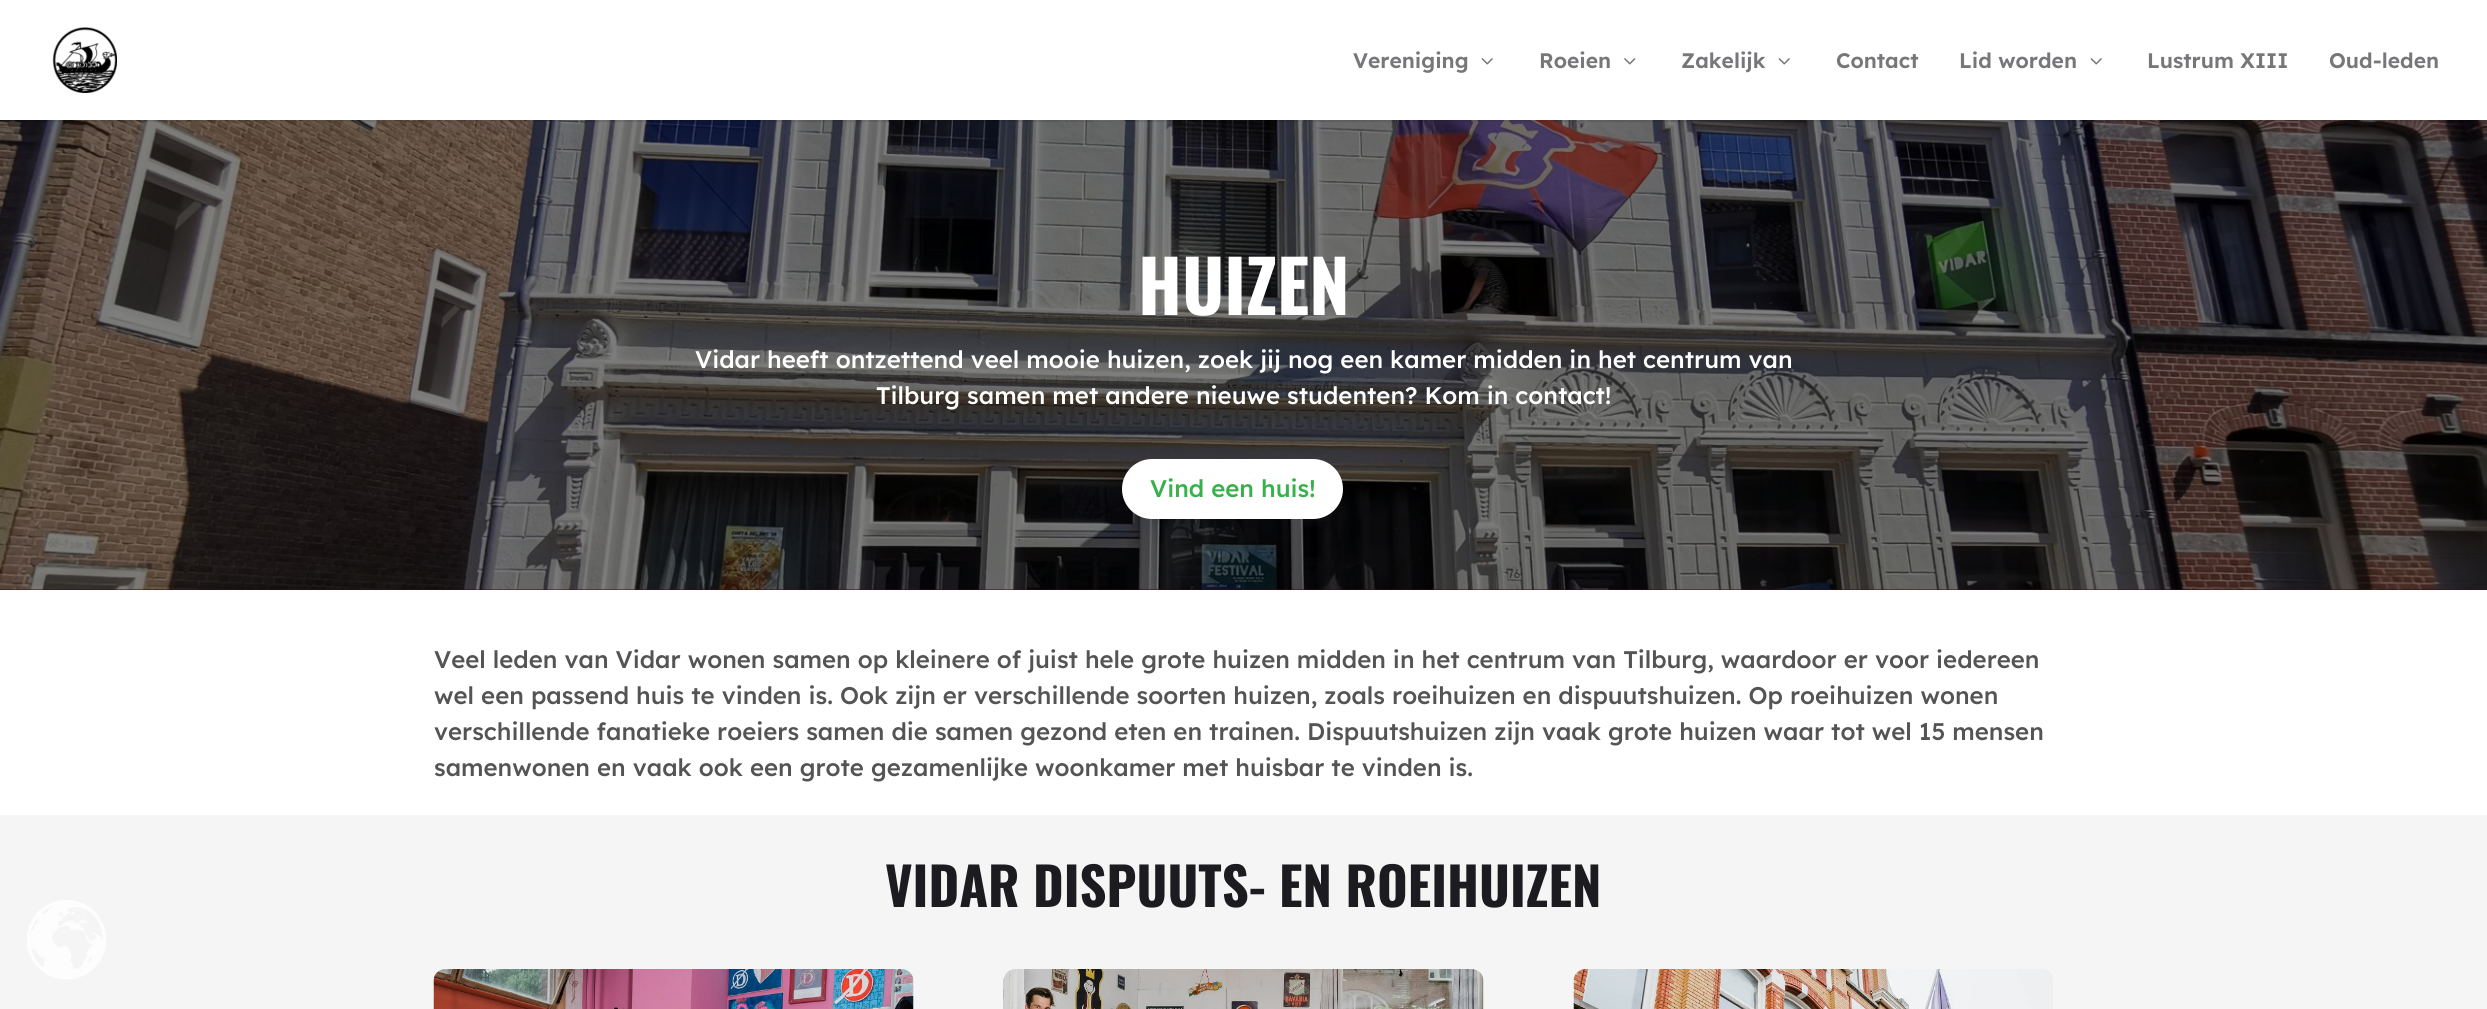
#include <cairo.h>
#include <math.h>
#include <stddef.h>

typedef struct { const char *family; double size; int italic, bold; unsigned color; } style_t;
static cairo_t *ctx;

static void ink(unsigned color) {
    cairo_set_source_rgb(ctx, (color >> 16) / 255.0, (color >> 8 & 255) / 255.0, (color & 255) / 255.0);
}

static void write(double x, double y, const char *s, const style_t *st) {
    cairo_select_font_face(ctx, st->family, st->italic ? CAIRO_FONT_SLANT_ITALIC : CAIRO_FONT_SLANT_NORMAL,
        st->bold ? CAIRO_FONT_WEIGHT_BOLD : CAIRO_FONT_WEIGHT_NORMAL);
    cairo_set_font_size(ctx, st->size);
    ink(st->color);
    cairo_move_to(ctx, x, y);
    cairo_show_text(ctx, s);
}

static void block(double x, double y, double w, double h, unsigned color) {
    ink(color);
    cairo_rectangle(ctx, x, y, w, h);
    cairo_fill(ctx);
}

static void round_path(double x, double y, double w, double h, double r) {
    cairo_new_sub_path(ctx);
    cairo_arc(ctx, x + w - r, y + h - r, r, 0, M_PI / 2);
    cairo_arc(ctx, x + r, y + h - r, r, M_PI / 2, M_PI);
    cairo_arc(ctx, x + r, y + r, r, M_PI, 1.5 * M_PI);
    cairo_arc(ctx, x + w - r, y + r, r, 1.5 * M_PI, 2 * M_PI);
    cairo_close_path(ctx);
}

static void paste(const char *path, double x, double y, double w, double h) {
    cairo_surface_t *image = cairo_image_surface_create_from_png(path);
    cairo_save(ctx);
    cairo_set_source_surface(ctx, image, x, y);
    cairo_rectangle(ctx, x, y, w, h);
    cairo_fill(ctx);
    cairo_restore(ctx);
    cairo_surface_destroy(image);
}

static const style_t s1 = {"Lexend SemiBold", 21, 0, 0, 0x777679};
static const style_t s2 = {"Oswald", 72, 0, 1, 0xffffff};
static const style_t s3 = {"Lexend Medium", 24, 0, 0, 0xffffff};
static const style_t s4 = {"Lexend Medium", 24, 0, 0, 0x38b04b};
static const style_t s5 = {"Lexend Medium", 24, 0, 0, 0x545454};
static const style_t s6 = {"Oswald", 52.5, 0, 1, 0x1c1b1f};

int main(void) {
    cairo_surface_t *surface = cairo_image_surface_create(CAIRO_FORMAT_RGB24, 2487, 1009);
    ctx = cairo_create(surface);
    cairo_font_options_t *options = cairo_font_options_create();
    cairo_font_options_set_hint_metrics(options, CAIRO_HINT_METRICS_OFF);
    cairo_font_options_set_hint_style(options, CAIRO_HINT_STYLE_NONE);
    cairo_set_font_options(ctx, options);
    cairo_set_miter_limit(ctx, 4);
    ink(0xffffff);
    cairo_paint(ctx);
    block(0, 589, 2487, 1, 0x3a0b0c);
    paste("pic4.png", 0, 120, 2487, 470);
    cairo_set_source_rgba(ctx, 0, 0, 0, 0.1);
    cairo_rectangle(ctx, 0, 120, 2487, 2);
    cairo_fill(ctx);
    paste("pic1.png", 52, 27, 65, 66);
    write(1353, 68, "Vereniging", &s1);
    paste("pic2.png", 1481, 58, 12, 7);
    write(1539, 68, "Roeien", &s1);
    paste("pic3.png", 1624, 58, 12, 7);
    write(1681, 68, "Zakelijk", &s1);
    paste("pic2.png", 1778, 58, 12, 7);
    write(1836, 68, "Contact", &s1);
    write(1959, 68, "Lid worden", &s1);
    paste("pic2.png", 2090, 58, 12, 7);
    write(2147, 68, "Lustrum XIII", &s1);
    write(2329, 68, "Oud-leden", &s1);
    write(1138, 315, "HUIZEN", &s2);
    write(695, 368, "Vidar heeft ontzettend veel mooie huizen, zoek jij nog een kamer midden in het centrum van", &s3);
    write(876, 404, "Tilburg samen met andere nieuwe studenten? Kom in contact!", &s3);
    round_path(1123.5, 460.5, 218, 57, 28.5);
    cairo_fill_preserve(ctx);
    cairo_set_line_width(ctx, 3);
    cairo_stroke(ctx);
    write(1150, 497, "Vind een huis!", &s4);
    write(434, 668, "Veel leden van Vidar wonen samen op kleinere of juist hele grote huizen midden in het centrum van Tilburg, waardoor er voor iedereen", &s5);
    write(434, 704, "wel een passend huis te vinden is. Ook zijn er verschillende soorten huizen, zoals roeihuizen en dispuutshuizen. Op roeihuizen wonen", &s5);
    write(434, 740, "verschillende fanatieke roeiers samen die samen gezond eten en trainen. Dispuutshuizen zijn vaak grote huizen waar tot wel 15 mensen", &s5);
    write(434, 776, "samenwonen en vaak ook een grote gezamenlijke woonkamer met huisbar te vinden is.", &s5);
    block(0, 815, 2487, 194, 0xf5f5f5);
    write(885, 907, "VIDAR DISPUUTS- EN ROEIHUIZEN", &s6);
    paste("pic5.png", 433, 969, 481, 40);
    paste("pic6.png", 1003, 969, 481, 40);
    paste("pic7.png", 1573, 969, 480, 40);
    paste("pic8.png", 27, 900, 79, 80);
    cairo_surface_write_to_png(surface, "screenshot.png");
    cairo_font_options_destroy(options);
    cairo_destroy(ctx);
    cairo_surface_destroy(surface);
    return 0;
}
